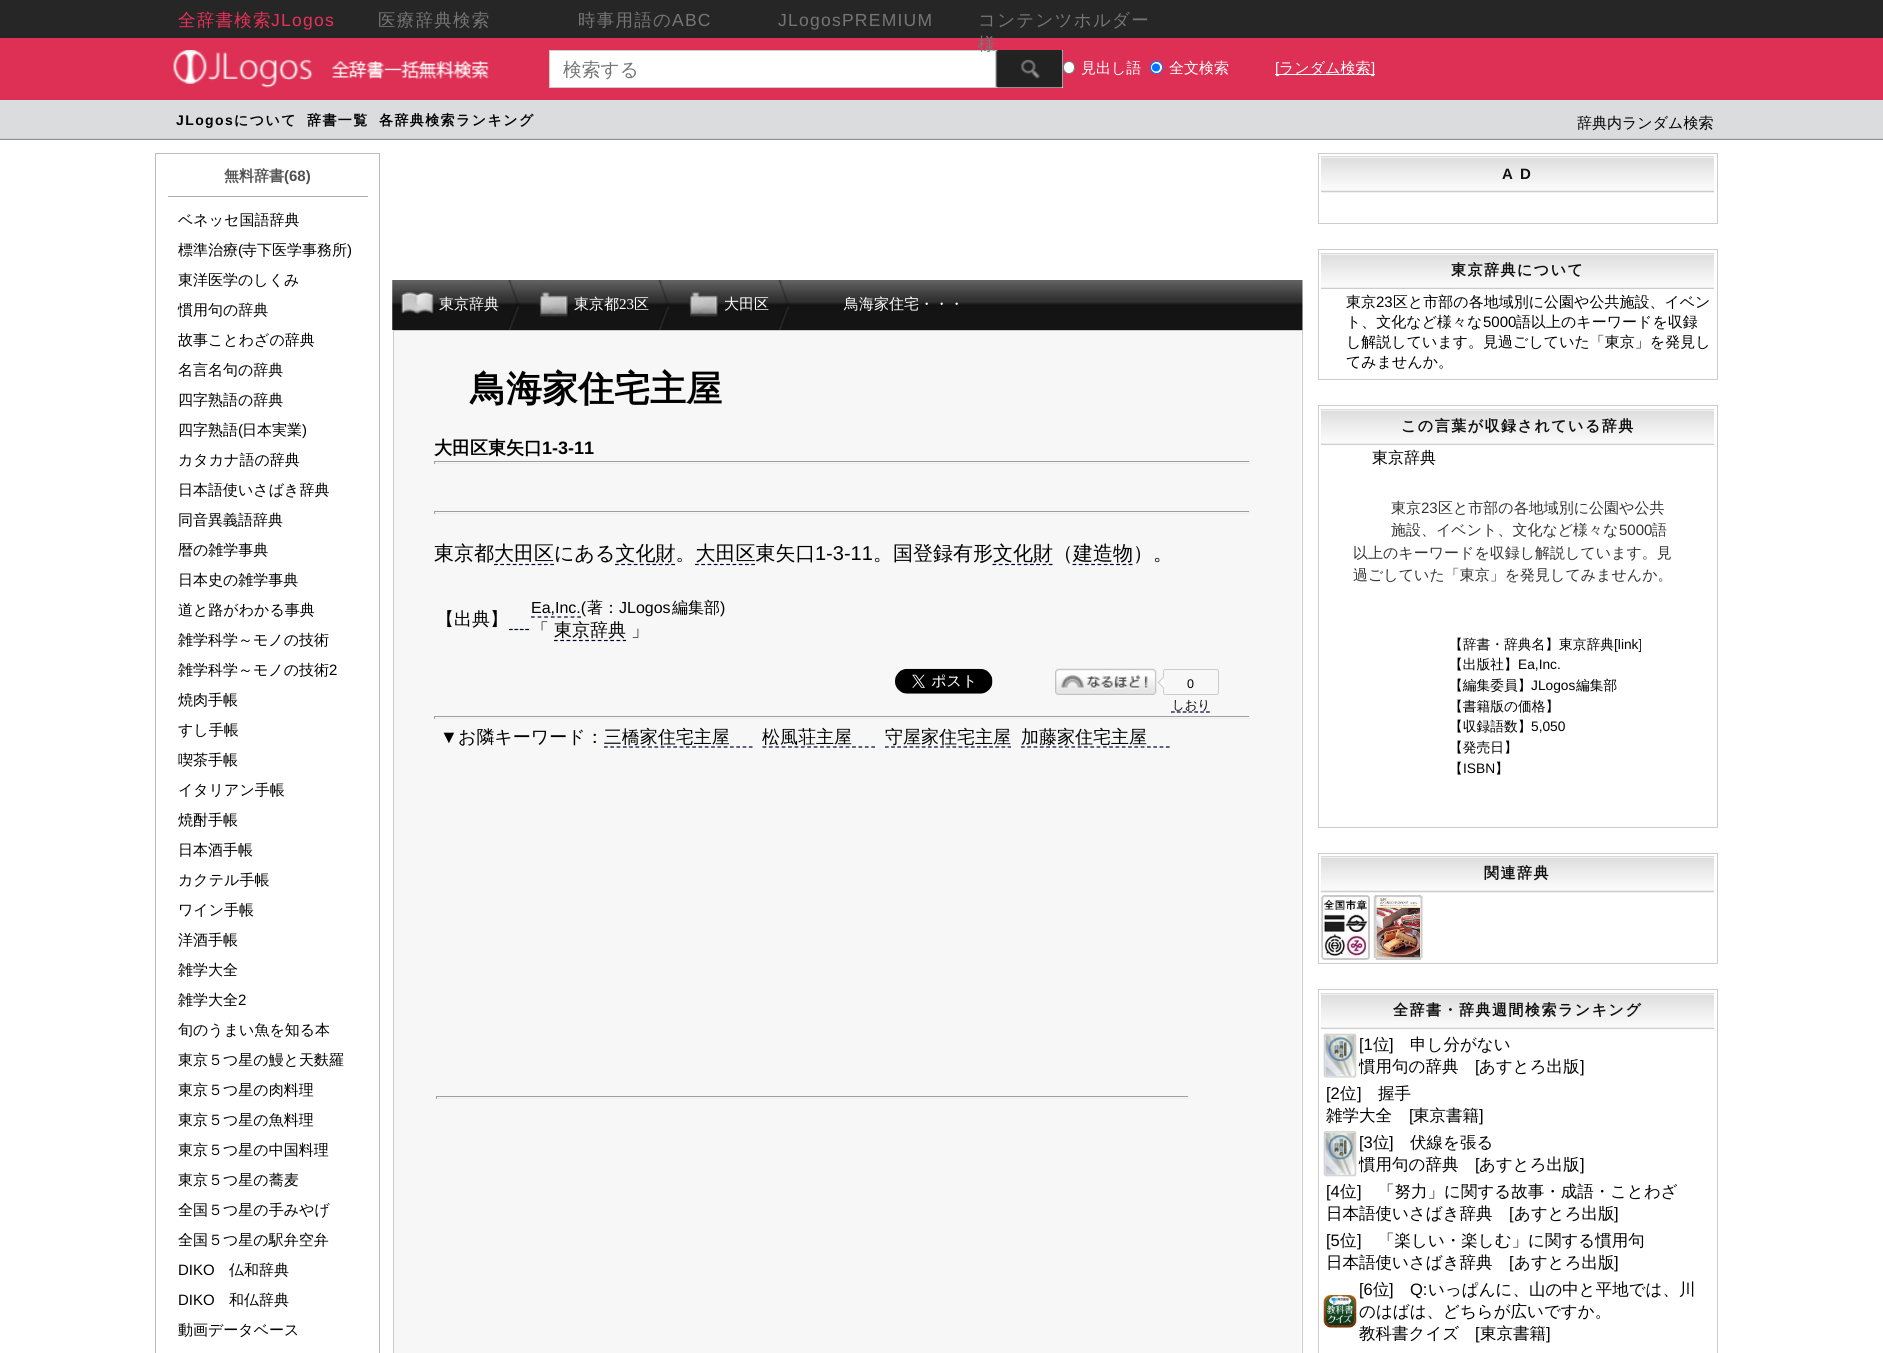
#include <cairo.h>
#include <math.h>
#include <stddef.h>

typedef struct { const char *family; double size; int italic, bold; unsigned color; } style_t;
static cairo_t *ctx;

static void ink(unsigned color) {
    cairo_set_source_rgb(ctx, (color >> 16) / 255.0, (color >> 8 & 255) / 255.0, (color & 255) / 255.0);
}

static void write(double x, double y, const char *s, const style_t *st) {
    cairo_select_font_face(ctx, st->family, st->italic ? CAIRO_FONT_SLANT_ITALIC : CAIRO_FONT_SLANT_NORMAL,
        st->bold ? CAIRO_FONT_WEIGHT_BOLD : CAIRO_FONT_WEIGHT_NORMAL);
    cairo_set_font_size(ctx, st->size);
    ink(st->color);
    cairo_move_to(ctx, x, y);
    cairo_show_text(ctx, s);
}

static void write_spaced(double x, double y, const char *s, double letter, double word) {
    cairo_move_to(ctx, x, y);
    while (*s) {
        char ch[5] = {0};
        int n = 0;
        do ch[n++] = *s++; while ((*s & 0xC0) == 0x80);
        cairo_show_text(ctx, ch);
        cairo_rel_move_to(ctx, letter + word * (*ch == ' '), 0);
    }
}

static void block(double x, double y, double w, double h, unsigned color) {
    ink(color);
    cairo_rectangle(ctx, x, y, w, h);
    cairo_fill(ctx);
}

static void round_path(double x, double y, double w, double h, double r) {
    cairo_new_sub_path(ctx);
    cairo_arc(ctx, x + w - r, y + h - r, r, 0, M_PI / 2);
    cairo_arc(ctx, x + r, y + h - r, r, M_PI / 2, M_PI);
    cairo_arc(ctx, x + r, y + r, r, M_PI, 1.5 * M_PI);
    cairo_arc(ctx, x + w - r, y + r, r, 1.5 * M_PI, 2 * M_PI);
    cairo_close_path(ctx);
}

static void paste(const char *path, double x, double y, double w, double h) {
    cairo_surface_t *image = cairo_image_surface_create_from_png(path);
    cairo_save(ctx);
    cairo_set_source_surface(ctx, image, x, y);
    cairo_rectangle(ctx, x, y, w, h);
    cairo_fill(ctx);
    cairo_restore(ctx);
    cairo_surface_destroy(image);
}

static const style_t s1 = {"WenQuanYi Zen Hei Medium", 18.75, 0, 0, 0x757575};
static const style_t s2 = {"WenQuanYi Zen Hei Medium", 15, 0, 0, 0xffffff};
static const style_t s3 = {"Liberation Sans", 15, 0, 0, 0xffffff};
static const style_t s4 = {"WenQuanYi Zen Hei Medium", 15, 0, 0, 0x000000};
static const style_t s5 = {"WenQuanYi Zen Hei", 15, 0, 1, 0x515151};
static const style_t s6 = {"Liberation Sans", 15, 0, 1, 0x515151};
static const style_t s7 = {"Liberation Sans", 15, 0, 0, 0x000000};
static const style_t s8 = {"Liberation Serif", 15, 0, 0, 0xffffff};
static const style_t s9 = {"WenQuanYi Zen Hei", 36, 0, 1, 0x000000};
static const style_t s10 = {"WenQuanYi Zen Hei", 18, 0, 1, 0x000000};
static const style_t s11 = {"Liberation Sans", 18, 0, 1, 0x000000};
static const style_t s12 = {"WenQuanYi Zen Hei Medium", 20, 0, 0, 0x000000};
static const style_t s13 = {"Liberation Sans", 20, 0, 0, 0x000000};
static const style_t s14 = {"WenQuanYi Zen Hei Medium", 18, 0, 0, 0x000000};
static const style_t s15 = {"Liberation Sans", 16, 0, 0, 0x000000};
static const style_t s16 = {"WenQuanYi Zen Hei Medium", 16, 0, 0, 0x000000};
static const style_t s17 = {"Liberation Sans", 12.5, 0, 0, 0x000000};
static const style_t s18 = {"WenQuanYi Zen Hei Medium", 12.5, 0, 0, 0x000000};
static const style_t s19 = {"Liberation Sans", 18, 0, 0, 0x000000};
static const style_t s20 = {"WenQuanYi Zen Hei Medium", 15, 0, 0, 0x333333};
static const style_t s21 = {"Liberation Sans", 15, 0, 0, 0x333333};
static const style_t s22 = {"WenQuanYi Zen Hei Medium", 13.75, 0, 0, 0x000000};
static const style_t s23 = {"Liberation Sans", 13.75, 0, 0, 0x000000};
static const style_t s24 = {"Liberation Sans", 16.5, 0, 0, 0x000000};
static const style_t s25 = {"WenQuanYi Zen Hei Medium", 16.5, 0, 0, 0x000000};

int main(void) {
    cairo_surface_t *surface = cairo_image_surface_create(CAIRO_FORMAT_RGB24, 1883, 1353);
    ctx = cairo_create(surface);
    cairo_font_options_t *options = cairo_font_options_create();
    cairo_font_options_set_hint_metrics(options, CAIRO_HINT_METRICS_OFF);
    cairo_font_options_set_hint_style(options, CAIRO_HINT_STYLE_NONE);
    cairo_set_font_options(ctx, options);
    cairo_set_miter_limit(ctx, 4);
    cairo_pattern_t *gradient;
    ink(0xffffff);
    cairo_paint(ctx);
    block(0, 0, 1883, 38, 0x262626);
    cairo_select_font_face(ctx, "WenQuanYi Zen Hei Medium", CAIRO_FONT_SLANT_NORMAL, CAIRO_FONT_WEIGHT_NORMAL);
    cairo_set_font_size(ctx, 17.5);
    ink(0xeb3058);
    write_spaced(178, 26, "全辞書検索", 1.25, 0);
    cairo_select_font_face(ctx, "Liberation Sans", CAIRO_FONT_SLANT_NORMAL, CAIRO_FONT_WEIGHT_NORMAL);
    write_spaced(271, 26, "JLogos", 1.25, 0);
    cairo_select_font_face(ctx, "WenQuanYi Zen Hei Medium", CAIRO_FONT_SLANT_NORMAL, CAIRO_FONT_WEIGHT_NORMAL);
    ink(0x757575);
    write_spaced(378, 26, "医療辞典検索", 1.25, 0);
    write_spaced(578, 26, "時事用語の", 1.25, 0);
    cairo_select_font_face(ctx, "Liberation Sans", CAIRO_FONT_SLANT_NORMAL, CAIRO_FONT_WEIGHT_NORMAL);
    write_spaced(672, 26, "ABC", 1.25, 0);
    write_spaced(778, 26, "JLogosPREMIUM", 1.25, 0);
    cairo_select_font_face(ctx, "WenQuanYi Zen Hei Medium", CAIRO_FONT_SLANT_NORMAL, CAIRO_FONT_WEIGHT_NORMAL);
    write_spaced(978, 26, "コンテンツホルダー", 1.25, 0);
    block(0, 38, 1883, 62, 0xdd3054);
    ink(0xffffff);
    cairo_rectangle(ctx, 549.5, 50.5, 446, 37);
    cairo_fill_preserve(ctx);
    ink(0xcccccc);
    cairo_set_line_width(ctx, 1);
    cairo_stroke(ctx);
    ink(0x757575);
    write_spaced(978, 50, "様", 1.25, 0);
    paste("pic1.png", 173, 50, 316, 38);
    write(563, 76, "検索する", &s1);
    block(996, 50, 67, 38, 0xffffff);
    paste("pic2.png", 996, 50, 67, 38);
    round_path(1063.5, 61.5, 11, 12, 5.5);
    cairo_fill_preserve(ctx);
    ink(0x767676);
    cairo_stroke(ctx);
    write(1081, 73, "見出し語", &s2);
    cairo_new_path(ctx);
    cairo_arc(ctx, 1156.5, 67.5, 6, 0, 2 * M_PI);
    cairo_fill_preserve(ctx);
    ink(0x0075ff);
    cairo_stroke(ctx);
    cairo_arc(ctx, 1156, 67.5, 4, 0, 2 * M_PI);
    cairo_fill(ctx);
    write(1169, 73, "全文検索", &s2);
    block(1275, 74, 100, 1, 0xffffff);
    write(1275, 73, "[", &s3);
    write(1279, 73, "ランダム検索", &s2);
    write(1371, 73, "]", &s3);
    ink(0x8f9091);
    cairo_new_path(ctx);
    cairo_move_to(ctx, 0, 139);
    cairo_line_to(ctx, 0, 140);
    cairo_line_to(ctx, 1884, 140);
    cairo_line_to(ctx, 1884, 101);
    cairo_line_to(ctx, 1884, 139);
    cairo_close_path(ctx);
    cairo_fill(ctx);
    block(0, 100, 1883, 38, 0xdbdcdd);
    block(0, 138, 1883, 1, 0xcdcecf);
    cairo_select_font_face(ctx, "Liberation Sans", CAIRO_FONT_SLANT_NORMAL, CAIRO_FONT_WEIGHT_BOLD);
    cairo_set_font_size(ctx, 14);
    ink(0x000000);
    write_spaced(176, 125, "JLogos", 1.4, 0);
    cairo_select_font_face(ctx, "WenQuanYi Zen Hei", CAIRO_FONT_SLANT_NORMAL, CAIRO_FONT_WEIGHT_BOLD);
    write_spaced(234, 125, "について", 1.4, 0);
    write_spaced(307, 125, "辞書一覧", 1.4, 0);
    write_spaced(379, 125, "各辞典検索ランキング", 1.4, 0);
    write(1577, 128, "辞典内ランダム検索", &s4);
    cairo_rectangle(ctx, 155.5, 153.5, 224, 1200);
    ink(0xbcbcbc);
    cairo_stroke(ctx);
    block(168, 196, 200, 1, 0xacacac);
    write(224, 181, "無料辞書", &s5);
    write(284, 181, "(68)", &s6);
    write(178, 225, "ベネッセ国語辞典", &s4);
    write(178, 255, "標準治療", &s4);
    write(238, 255, "(", &s7);
    write(242, 255, "寺下医学事務所", &s4);
    write(347, 255, ")", &s7);
    write(178, 285, "東洋医学のしくみ", &s4);
    write(178, 315, "慣用句の辞典", &s4);
    write(178, 345, "故事ことわざの辞典", &s4);
    write(178, 375, "名言名句の辞典", &s4);
    write(178, 405, "四字熟語の辞典", &s4);
    write(178, 435, "四字熟語", &s4);
    write(238, 435, "(", &s7);
    write(242, 435, "日本実業", &s4);
    write(302, 435, ")", &s7);
    write(178, 465, "カタカナ語の辞典", &s4);
    write(178, 495, "日本語使いさばき辞典", &s4);
    write(178, 525, "同音異義語辞典", &s4);
    write(178, 555, "暦の雑学事典", &s4);
    write(178, 585, "日本史の雑学事典", &s4);
    write(178, 615, "道と路がわかる事典", &s4);
    write(178, 645, "雑学科学～モノの技術", &s4);
    write(178, 675, "雑学科学～モノの技術", &s4);
    write(329, 675, "2", &s7);
    write(178, 705, "焼肉手帳", &s4);
    write(178, 735, "すし手帳", &s4);
    write(178, 765, "喫茶手帳", &s4);
    write(178, 795, "イタリアン手帳", &s4);
    write(178, 825, "焼酎手帳", &s4);
    write(178, 855, "日本酒手帳", &s4);
    write(178, 885, "カクテル手帳", &s4);
    write(178, 915, "ワイン手帳", &s4);
    write(178, 945, "洋酒手帳", &s4);
    write(178, 975, "雑学大全", &s4);
    write(178, 1005, "雑学大全", &s4);
    write(238, 1005, "2", &s7);
    write(178, 1035, "旬のうまい魚を知る本", &s4);
    write(178, 1065, "東京５つ星の鰻と天麩羅", &s4);
    write(178, 1095, "東京５つ星の肉料理", &s4);
    write(178, 1125, "東京５つ星の魚料理", &s4);
    write(178, 1155, "東京５つ星の中国料理", &s4);
    write(178, 1185, "東京５つ星の蕎麦", &s4);
    write(178, 1215, "全国５つ星の手みやげ", &s4);
    write(178, 1245, "全国５つ星の駅弁空弁", &s4);
    write(178, 1275, "DIKO", &s7);
    write(229, 1275, "仏和辞典", &s4);
    write(178, 1305, "DIKO", &s7);
    write(229, 1305, "和仏辞典", &s4);
    write(178, 1335, "動画データベース", &s4);
    paste("pic3.png", 392, 280, 911, 50);
    paste("pic4.png", 392, 280, 42, 50);
    write(439, 309, "東京辞典", &s2);
    paste("pic5.png", 508, 280, 11, 50);
    paste("pic6.png", 539, 292, 30, 25);
    write(574, 309, "東京都", &s2);
    write(619, 309, "23", &s8);
    write(634, 309, "区", &s2);
    paste("pic5.png", 658, 280, 11, 50);
    paste("pic7.png", 689, 292, 30, 25);
    write(724, 309, "大田区", &s2);
    paste("pic5.png", 778, 280, 11, 50);
    write(844, 309, "鳥海家住宅・・・", &s2);
    cairo_rectangle(ctx, 393.5, 330.5, 909, 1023);
    ink(0xcccccc);
    cairo_stroke(ctx);
    block(394, 331, 907, 1022, 0xf7f7f7);
    write(470, 401, "鳥海家住宅主屋", &s9);
    write(434, 454, "大田区東矢口", &s10);
    write(542, 454, "1-3-11", &s11);
    block(434, 461, 816, 1, 0x9f9f9f);
    block(1249, 461, 1, 3, 0xeeeeee);
    block(434, 463, 816, 1, 0xeeeeee);
    block(434, 461, 1, 3, 0x9f9f9f);
    block(434, 511, 816, 1, 0x9f9f9f);
    block(1249, 511, 1, 3, 0xeeeeee);
    block(434, 513, 816, 1, 0xeeeeee);
    block(434, 511, 1, 3, 0x9f9f9f);
    write(434, 560, "東京都大田区にある文化財。大田区東矢口", &s12);
    write(815, 560, "1-3-11", &s13);
    write(873, 560, "。国登録有形文化財（建造物）。", &s12);
    cairo_new_path(ctx);
    cairo_move_to(ctx, 494, 564.5);
    cairo_line_to(ctx, 554, 564.5);
    ink(0x000033);
    cairo_set_line_width(ctx, 1.2);
    cairo_set_dash(ctx, (double[]){3.75, 2.5}, 2, 0);
    cairo_stroke(ctx);
    cairo_new_path(ctx);
    cairo_move_to(ctx, 615, 564.5);
    cairo_line_to(ctx, 675, 564.5);
    cairo_stroke(ctx);
    cairo_new_path(ctx);
    cairo_move_to(ctx, 695, 564.5);
    cairo_line_to(ctx, 755, 564.5);
    cairo_stroke(ctx);
    cairo_new_path(ctx);
    cairo_move_to(ctx, 992.5, 564.5);
    cairo_line_to(ctx, 1052.5, 564.5);
    cairo_stroke(ctx);
    cairo_new_path(ctx);
    cairo_move_to(ctx, 1072.5, 564.5);
    cairo_line_to(ctx, 1132.5, 564.5);
    cairo_stroke(ctx);
    write(436, 625, "【出典】", &s14);
    cairo_new_path(ctx);
    cairo_move_to(ctx, 509, 629.5);
    cairo_line_to(ctx, 529, 629.5);
    ink(0x000033);
    cairo_set_dash(ctx, (double[]){3.75, 1.66}, 2, 0);
    cairo_stroke(ctx);
    cairo_new_path(ctx);
    cairo_move_to(ctx, 531, 617);
    cairo_line_to(ctx, 581, 617);
    cairo_set_dash(ctx, (double[]){3.75, 2.86}, 2, 0);
    cairo_stroke(ctx);
    write(531, 613, "Ea,Inc.(", &s15);
    write(587, 613, "著：", &s16);
    write(619, 613, "JLogos", &s15);
    write(672, 613, "編集部", &s16);
    write(720, 613, ")", &s15);
    write(531, 636, "「", &s14);
    write(554, 636, "東京辞典", &s14);
    cairo_new_path(ctx);
    cairo_move_to(ctx, 554, 640.5);
    cairo_line_to(ctx, 626, 640.5);
    ink(0x000033);
    cairo_set_dash(ctx, (double[]){3.75, 2.5}, 2, 0);
    cairo_stroke(ctx);
    write(631, 636, "」", &s14);
    paste("pic8.png", 895, 668, 98, 26);
    paste("pic9.png", 1055, 668, 102, 27);
    round_path(1163.5, 669.5, 55, 25, 2);
    ink(0xcccccc);
    cairo_set_line_width(ctx, 1);
    cairo_set_dash(ctx, NULL, 0, 0);
    cairo_stroke(ctx);
    cairo_new_path(ctx);
    cairo_move_to(ctx, 1164, 676);
    cairo_line_to(ctx, 1164, 689);
    cairo_line_to(ctx, 1157.5, 682.5);
    cairo_close_path(ctx);
    cairo_fill(ctx);
    ink(0xffffff);
    cairo_new_path(ctx);
    cairo_move_to(ctx, 1164, 677.5);
    cairo_line_to(ctx, 1164, 687.5);
    cairo_line_to(ctx, 1159, 682.5);
    cairo_close_path(ctx);
    cairo_fill(ctx);
    write(1187, 688, "0", &s17);
    write(1172, 709, "しおり", &s18);
    cairo_new_path(ctx);
    cairo_move_to(ctx, 1171, 712);
    cairo_line_to(ctx, 1210, 712);
    ink(0x000033);
    cairo_set_line_width(ctx, 1.2);
    cairo_set_dash(ctx, (double[]){3.75, 2.09}, 2, 0);
    cairo_stroke(ctx);
    block(434, 716, 816, 1, 0x9f9f9f);
    block(1249, 716, 1, 3, 0xeeeeee);
    block(434, 718, 816, 1, 0xeeeeee);
    block(434, 716, 1, 3, 0x9f9f9f);
    write(440, 743, "▼", &s19);
    write(458, 743, "お隣キーワード：三橋家住宅主屋", &s14);
    write(762, 743, "松風荘主屋", &s14);
    cairo_new_path(ctx);
    cairo_move_to(ctx, 762.5, 747);
    cairo_line_to(ctx, 875, 747);
    ink(0x000033);
    cairo_set_dash(ctx, (double[]){3.75, 2.65}, 2, 0);
    cairo_stroke(ctx);
    write(885, 743, "守屋家住宅主屋", &s14);
    cairo_new_path(ctx);
    cairo_move_to(ctx, 885, 747);
    cairo_line_to(ctx, 1011, 747);
    ink(0x000033);
    cairo_set_dash(ctx, (double[]){3.75, 2.38}, 2, 0);
    cairo_stroke(ctx);
    write(1021, 743, "加藤家住宅主屋", &s14);
    cairo_new_path(ctx);
    cairo_move_to(ctx, 1021, 747);
    cairo_line_to(ctx, 1170, 747);
    ink(0x000033);
    cairo_set_dash(ctx, (double[]){3.75, 2.55}, 2, 0);
    cairo_stroke(ctx);
    cairo_new_path(ctx);
    cairo_move_to(ctx, 604, 747);
    cairo_line_to(ctx, 752.5, 747);
    cairo_stroke(ctx);
    block(436, 1096, 753, 1, 0x9f9f9f);
    block(1188, 1096, 1, 3, 0xeeeeee);
    block(436, 1098, 753, 1, 0xeeeeee);
    block(436, 1096, 1, 3, 0x9f9f9f);
    cairo_rectangle(ctx, 1318.5, 153.5, 399, 70);
    ink(0xcccccc);
    cairo_set_line_width(ctx, 1);
    cairo_set_dash(ctx, NULL, 0, 0);
    cairo_stroke(ctx);
    gradient = cairo_pattern_create_linear(1321, 156, 1321, 191);
    cairo_pattern_add_color_stop_rgba(gradient, 0, 0.718, 0.718, 0.718, 1);
    cairo_pattern_add_color_stop_rgba(gradient, 0.03, 0.996, 1, 1, 1);
    cairo_pattern_add_color_stop_rgba(gradient, 0.06, 0.871, 0.871, 0.875, 1);
    cairo_pattern_add_color_stop_rgba(gradient, 0.41, 0.918, 0.918, 0.918, 1);
    cairo_pattern_add_color_stop_rgba(gradient, 0.95, 0.984, 0.984, 0.984, 1);
    cairo_pattern_add_color_stop_rgba(gradient, 1, 0.918, 0.918, 0.918, 1);
    cairo_set_source(ctx, gradient);
    cairo_pattern_destroy(gradient);
    cairo_rectangle(ctx, 1321, 156, 393, 35);
    cairo_fill(ctx);
    gradient = cairo_pattern_create_linear(1321, 191, 1321, 226);
    cairo_pattern_add_color_stop_rgba(gradient, 0, 0.718, 0.718, 0.718, 1);
    cairo_pattern_add_color_stop_rgba(gradient, 0.03, 0.996, 1, 1, 1);
    cairo_pattern_add_color_stop_rgba(gradient, 0.06, 0.871, 0.871, 0.875, 1);
    cairo_pattern_add_color_stop_rgba(gradient, 0.41, 0.918, 0.918, 0.918, 1);
    cairo_pattern_add_color_stop_rgba(gradient, 0.95, 0.984, 0.984, 0.984, 1);
    cairo_pattern_add_color_stop_rgba(gradient, 1, 0.918, 0.918, 0.918, 1);
    cairo_set_source(ctx, gradient);
    cairo_pattern_destroy(gradient);
    cairo_rectangle(ctx, 1321, 192, 393, 1);
    cairo_fill(ctx);
    block(1321, 191, 393, 1, 0xcccccc);
    cairo_select_font_face(ctx, "Liberation Sans", CAIRO_FONT_SLANT_NORMAL, CAIRO_FONT_WEIGHT_BOLD);
    cairo_set_font_size(ctx, 15);
    ink(0x111111);
    write_spaced(1502, 179, "A D", 1.5, 0);
    cairo_rectangle(ctx, 1318.5, 249.5, 399, 130);
    ink(0xcccccc);
    cairo_stroke(ctx);
    gradient = cairo_pattern_create_linear(1321, 253, 1321, 288);
    cairo_pattern_add_color_stop_rgba(gradient, 0, 0.718, 0.718, 0.718, 1);
    cairo_pattern_add_color_stop_rgba(gradient, 0.03, 0.996, 1, 1, 1);
    cairo_pattern_add_color_stop_rgba(gradient, 0.06, 0.871, 0.871, 0.875, 1);
    cairo_pattern_add_color_stop_rgba(gradient, 0.41, 0.918, 0.918, 0.918, 1);
    cairo_pattern_add_color_stop_rgba(gradient, 0.95, 0.984, 0.984, 0.984, 1);
    cairo_pattern_add_color_stop_rgba(gradient, 1, 0.918, 0.918, 0.918, 1);
    cairo_set_source(ctx, gradient);
    cairo_pattern_destroy(gradient);
    cairo_rectangle(ctx, 1321, 253, 393, 35);
    cairo_fill(ctx);
    block(1321, 288, 393, 1, 0xcccccc);
    cairo_select_font_face(ctx, "WenQuanYi Zen Hei", CAIRO_FONT_SLANT_NORMAL, CAIRO_FONT_WEIGHT_BOLD);
    ink(0x111111);
    write_spaced(1451, 275, "東京辞典について", 1.5, 0);
    write(1346, 307, "東京", &s4);
    write(1376, 307, "23", &s7);
    write(1393, 307, "区と市部の各地域別に公園や公共施設、イベン", &s4);
    write(1346, 327, "ト、文化など様々な", &s4);
    write(1483, 327, "5000", &s7);
    write(1516, 327, "語以上のキーワードを収録", &s4);
    write(1346, 347, "し解説しています。見過ごしていた「東京」を発見し", &s4);
    write(1346, 367, "てみませんか。", &s4);
    cairo_rectangle(ctx, 1318.5, 405.5, 399, 422);
    ink(0xcccccc);
    cairo_stroke(ctx);
    gradient = cairo_pattern_create_linear(1321, 409, 1321, 444);
    cairo_pattern_add_color_stop_rgba(gradient, 0, 0.718, 0.718, 0.718, 1);
    cairo_pattern_add_color_stop_rgba(gradient, 0.03, 0.996, 1, 1, 1);
    cairo_pattern_add_color_stop_rgba(gradient, 0.06, 0.871, 0.871, 0.875, 1);
    cairo_pattern_add_color_stop_rgba(gradient, 0.41, 0.918, 0.918, 0.918, 1);
    cairo_pattern_add_color_stop_rgba(gradient, 0.95, 0.984, 0.984, 0.984, 1);
    cairo_pattern_add_color_stop_rgba(gradient, 1, 0.918, 0.918, 0.918, 1);
    cairo_set_source(ctx, gradient);
    cairo_pattern_destroy(gradient);
    cairo_rectangle(ctx, 1321, 409, 393, 35);
    cairo_fill(ctx);
    block(1321, 444, 393, 1, 0xcccccc);
    cairo_select_font_face(ctx, "WenQuanYi Zen Hei", CAIRO_FONT_SLANT_NORMAL, CAIRO_FONT_WEIGHT_BOLD);
    ink(0x111111);
    write_spaced(1401, 431, "この言葉が収録されている辞典", 1.5, 0);
    write(1372, 463, "東京辞典", &s16);
    write(1391, 513, "東京", &s20);
    write(1421, 513, "23", &s21);
    write(1438, 513, "区と市部の各地域別に公園や公共", &s20);
    write(1391, 535, "施設、イベント、文化など様々な", &s20);
    write(1619, 535, "5000", &s21);
    write(1652, 535, "語", &s20);
    write(1353, 558, "以上のキーワードを収録し解説しています。見", &s20);
    write(1353, 580, "過ごしていた「東京」を発見してみませんか。", &s20);
    write(1449, 649, "【辞書・辞典名】東京辞典", &s22);
    write(1614, 649, "[link]", &s23);
    write(1449, 669, "【出版社】", &s22);
    write(1518, 669, "Ea,Inc.", &s23);
    write(1449, 690, "【編集委員】", &s22);
    write(1531, 690, "JLogos", &s23);
    write(1576, 690, "編集部", &s22);
    write(1449, 711, "【書籍版の価格】", &s22);
    write(1449, 731, "【収録語数】", &s22);
    write(1531, 731, "5,050", &s23);
    write(1449, 752, "【発売日】", &s22);
    write(1449, 773, "【", &s22);
    write(1463, 773, "ISBN", &s23);
    write(1495, 773, "】", &s22);
    cairo_rectangle(ctx, 1318.5, 853.5, 399, 110);
    ink(0xcccccc);
    cairo_stroke(ctx);
    gradient = cairo_pattern_create_linear(1321, 856, 1321, 891);
    cairo_pattern_add_color_stop_rgba(gradient, 0, 0.718, 0.718, 0.718, 1);
    cairo_pattern_add_color_stop_rgba(gradient, 0.03, 0.996, 1, 1, 1);
    cairo_pattern_add_color_stop_rgba(gradient, 0.06, 0.871, 0.871, 0.875, 1);
    cairo_pattern_add_color_stop_rgba(gradient, 0.41, 0.918, 0.918, 0.918, 1);
    cairo_pattern_add_color_stop_rgba(gradient, 0.95, 0.984, 0.984, 0.984, 1);
    cairo_pattern_add_color_stop_rgba(gradient, 1, 0.918, 0.918, 0.918, 1);
    cairo_set_source(ctx, gradient);
    cairo_pattern_destroy(gradient);
    cairo_rectangle(ctx, 1321, 856, 393, 35);
    cairo_fill(ctx);
    gradient = cairo_pattern_create_linear(1321, 891, 1321, 926);
    cairo_pattern_add_color_stop_rgba(gradient, 0, 0.718, 0.718, 0.718, 1);
    cairo_pattern_add_color_stop_rgba(gradient, 0.03, 0.996, 1, 1, 1);
    cairo_pattern_add_color_stop_rgba(gradient, 0.06, 0.871, 0.871, 0.875, 1);
    cairo_pattern_add_color_stop_rgba(gradient, 0.41, 0.918, 0.918, 0.918, 1);
    cairo_pattern_add_color_stop_rgba(gradient, 0.95, 0.984, 0.984, 0.984, 1);
    cairo_pattern_add_color_stop_rgba(gradient, 1, 0.918, 0.918, 0.918, 1);
    cairo_set_source(ctx, gradient);
    cairo_pattern_destroy(gradient);
    cairo_rectangle(ctx, 1321, 892, 393, 1);
    cairo_fill(ctx);
    block(1321, 891, 393, 1, 0xcccccc);
    cairo_select_font_face(ctx, "WenQuanYi Zen Hei", CAIRO_FONT_SLANT_NORMAL, CAIRO_FONT_WEIGHT_BOLD);
    cairo_set_font_size(ctx, 15);
    ink(0x111111);
    write_spaced(1484, 878, "関連辞典", 1.5, 0);
    paste("pic10.png", 1321, 895, 49, 65);
    paste("pic11.png", 1373, 895, 50, 65);
    cairo_rectangle(ctx, 1318.5, 989.5, 399, 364);
    ink(0xcccccc);
    cairo_stroke(ctx);
    gradient = cairo_pattern_create_linear(1321, 993, 1321, 1028);
    cairo_pattern_add_color_stop_rgba(gradient, 0, 0.718, 0.718, 0.718, 1);
    cairo_pattern_add_color_stop_rgba(gradient, 0.03, 0.996, 1, 1, 1);
    cairo_pattern_add_color_stop_rgba(gradient, 0.06, 0.871, 0.871, 0.875, 1);
    cairo_pattern_add_color_stop_rgba(gradient, 0.41, 0.918, 0.918, 0.918, 1);
    cairo_pattern_add_color_stop_rgba(gradient, 0.95, 0.984, 0.984, 0.984, 1);
    cairo_pattern_add_color_stop_rgba(gradient, 1, 0.918, 0.918, 0.918, 1);
    cairo_set_source(ctx, gradient);
    cairo_pattern_destroy(gradient);
    cairo_rectangle(ctx, 1321, 993, 393, 35);
    cairo_fill(ctx);
    block(1321, 1028, 393, 1, 0xcccccc);
    ink(0x111111);
    write_spaced(1393, 1015, "全辞書・辞典週間検索ランキング", 1.5, 0);
    paste("pic12.png", 1323, 1033, 34, 45);
    write(1359, 1050, "[1", &s24);
    write(1373, 1050, "位", &s25);
    write(1389, 1050, "]", &s24);
    write(1410, 1050, "申し分がない", &s25);
    write(1359, 1072, "慣用句の辞典", &s25);
    write(1475, 1072, "[", &s24);
    write(1479, 1072, "あすとろ出版", &s25);
    write(1580, 1072, "]", &s24);
    write(1326, 1099, "[2", &s24);
    write(1340, 1099, "位", &s25);
    write(1357, 1099, "]", &s24);
    write(1378, 1099, "握手", &s25);
    write(1326, 1121, "雑学大全", &s25);
    write(1409, 1121, "[", &s24);
    write(1413, 1121, "東京書籍", &s25);
    write(1479, 1121, "]", &s24);
    paste("pic13.png", 1323, 1131, 34, 46);
    write(1359, 1148, "[3", &s24);
    write(1373, 1148, "位", &s25);
    write(1389, 1148, "]", &s24);
    write(1410, 1148, "伏線を張る", &s25);
    write(1359, 1170, "慣用句の辞典", &s25);
    write(1475, 1170, "[", &s24);
    write(1479, 1170, "あすとろ出版", &s25);
    write(1580, 1170, "]", &s24);
    write(1326, 1197, "[4", &s24);
    write(1340, 1197, "位", &s25);
    write(1357, 1197, "]", &s24);
    write(1378, 1197, "「努力」に関する故事・成語・ことわざ", &s25);
    write(1326, 1219, "日本語使いさばき辞典", &s25);
    write(1509, 1219, "[", &s24);
    write(1514, 1219, "あすとろ出版", &s25);
    write(1614, 1219, "]", &s24);
    write(1326, 1246, "[5", &s24);
    write(1340, 1246, "位", &s25);
    write(1357, 1246, "]", &s24);
    write(1378, 1246, "「楽しい・楽しむ」に関する慣用句", &s25);
    write(1326, 1268, "日本語使いさばき辞典", &s25);
    write(1509, 1268, "[", &s24);
    write(1514, 1268, "あすとろ出版", &s25);
    write(1614, 1268, "]", &s24);
    paste("pic14.png", 1323, 1295, 34, 33);
    write(1359, 1295, "[6", &s24);
    write(1373, 1295, "位", &s25);
    write(1389, 1295, "]", &s24);
    write(1410, 1295, "Q:", &s24);
    write(1428, 1295, "いっぱんに、山の中と平地では、川", &s25);
    write(1359, 1317, "のはばは、どちらが広いですか。", &s25);
    write(1359, 1339, "教科書クイズ", &s25);
    write(1475, 1339, "[", &s24);
    write(1480, 1339, "東京書籍", &s25);
    write(1546, 1339, "]", &s24);
    cairo_surface_write_to_png(surface, "screenshot.png");
    cairo_font_options_destroy(options);
    cairo_destroy(ctx);
    cairo_surface_destroy(surface);
    return 0;
}
